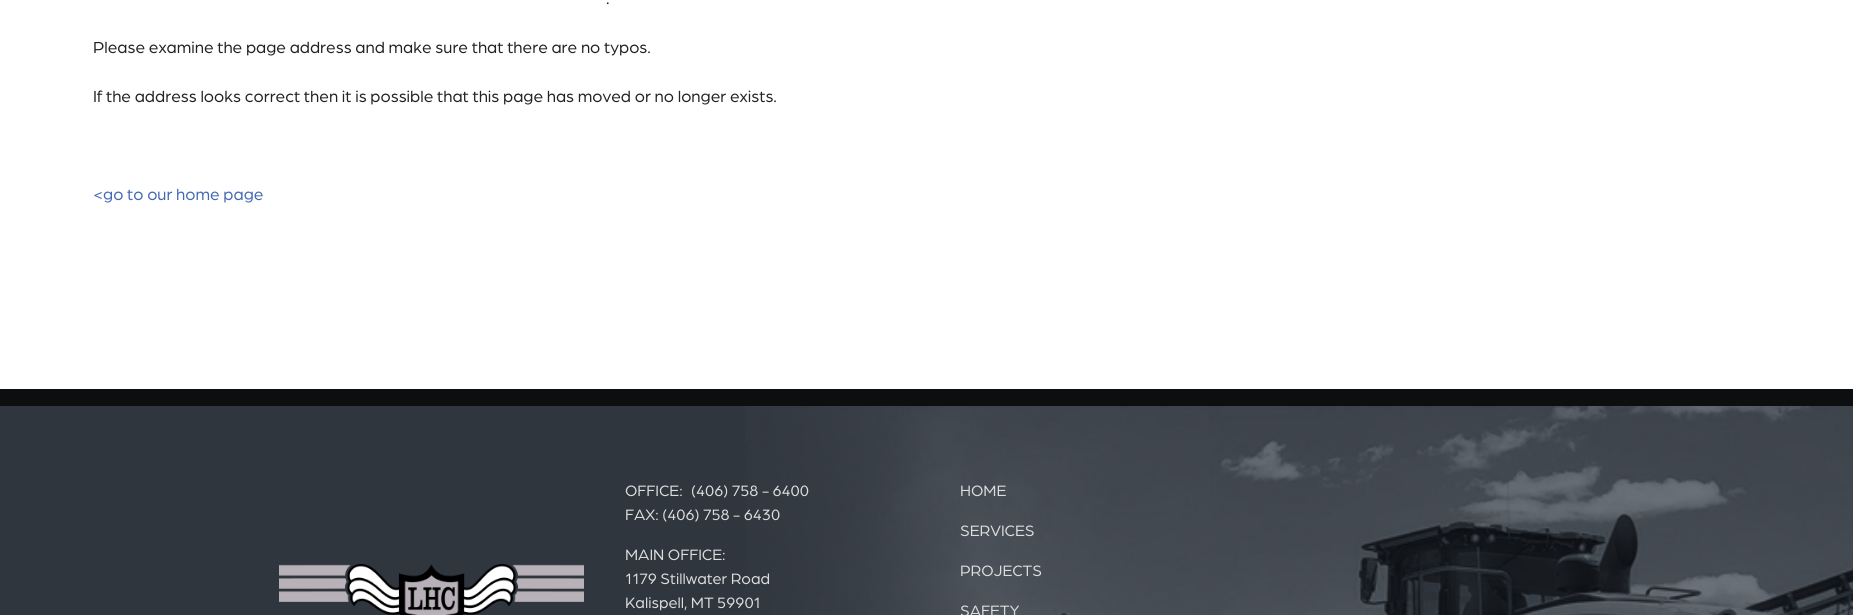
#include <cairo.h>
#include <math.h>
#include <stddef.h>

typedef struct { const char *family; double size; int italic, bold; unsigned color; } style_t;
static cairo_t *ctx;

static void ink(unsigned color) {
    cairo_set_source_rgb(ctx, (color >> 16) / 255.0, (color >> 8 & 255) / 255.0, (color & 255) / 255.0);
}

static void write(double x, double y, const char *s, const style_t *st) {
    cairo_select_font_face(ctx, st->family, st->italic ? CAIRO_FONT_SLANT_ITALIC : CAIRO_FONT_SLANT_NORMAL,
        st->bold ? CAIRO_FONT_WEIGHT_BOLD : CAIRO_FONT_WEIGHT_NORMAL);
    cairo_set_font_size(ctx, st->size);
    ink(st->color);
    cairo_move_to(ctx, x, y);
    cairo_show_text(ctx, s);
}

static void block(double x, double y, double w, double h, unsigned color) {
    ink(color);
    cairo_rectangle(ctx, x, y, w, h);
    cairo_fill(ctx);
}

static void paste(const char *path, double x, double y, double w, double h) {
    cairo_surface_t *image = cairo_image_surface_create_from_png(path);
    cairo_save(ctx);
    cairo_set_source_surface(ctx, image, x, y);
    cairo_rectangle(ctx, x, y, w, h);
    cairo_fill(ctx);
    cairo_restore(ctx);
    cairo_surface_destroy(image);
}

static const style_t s1 = {"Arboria", 17, 0, 0, 0x222222};
static const style_t s2 = {"Arboria", 17, 0, 0, 0x4168b2};
static const style_t s3 = {"Arboria", 16, 0, 0, 0xdddddd};

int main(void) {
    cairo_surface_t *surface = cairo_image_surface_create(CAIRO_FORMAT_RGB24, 1853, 615);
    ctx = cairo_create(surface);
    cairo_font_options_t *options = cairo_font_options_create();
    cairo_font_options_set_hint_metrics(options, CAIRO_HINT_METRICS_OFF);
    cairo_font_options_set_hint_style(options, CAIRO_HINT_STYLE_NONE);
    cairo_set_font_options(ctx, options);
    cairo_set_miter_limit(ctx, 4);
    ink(0xffffff);
    cairo_paint(ctx);
    write(606, 4, ".", &s1);
    write(93, 53, "Please examine the page address and make sure that there are no typos.", &s1);
    write(93, 102, "If the address looks correct then it is possible that this page has moved or no longer exists.", &s1);
    write(93, 200, "<go to our home page", &s2);
    block(0, 389, 1853, 17, 0x0d0e10);
    block(0, 406, 745, 209, 0x2f363e);
    paste("pic1.png", 745, 406, 1108, 209);
    paste("pic2.png", 279, 564, 305, 51);
    write(625, 496, "OFFICE:", &s3);
    write(691, 496, "(406) 758 - 6400", &s3);
    write(625, 520, "FAX: (406) 758 - 6430", &s3);
    write(625, 560, "MAIN OFFICE:", &s3);
    write(625, 584, "1179 Stillwater Road", &s3);
    write(625, 608, "Kalispell, MT 59901", &s3);
    write(960, 496, "HOME", &s3);
    write(960, 536, "SERVICES", &s3);
    write(960, 576, "PROJECTS", &s3);
    write(960, 616, "SAFETY", &s3);
    cairo_surface_write_to_png(surface, "screenshot.png");
    cairo_font_options_destroy(options);
    cairo_destroy(ctx);
    cairo_surface_destroy(surface);
    return 0;
}
